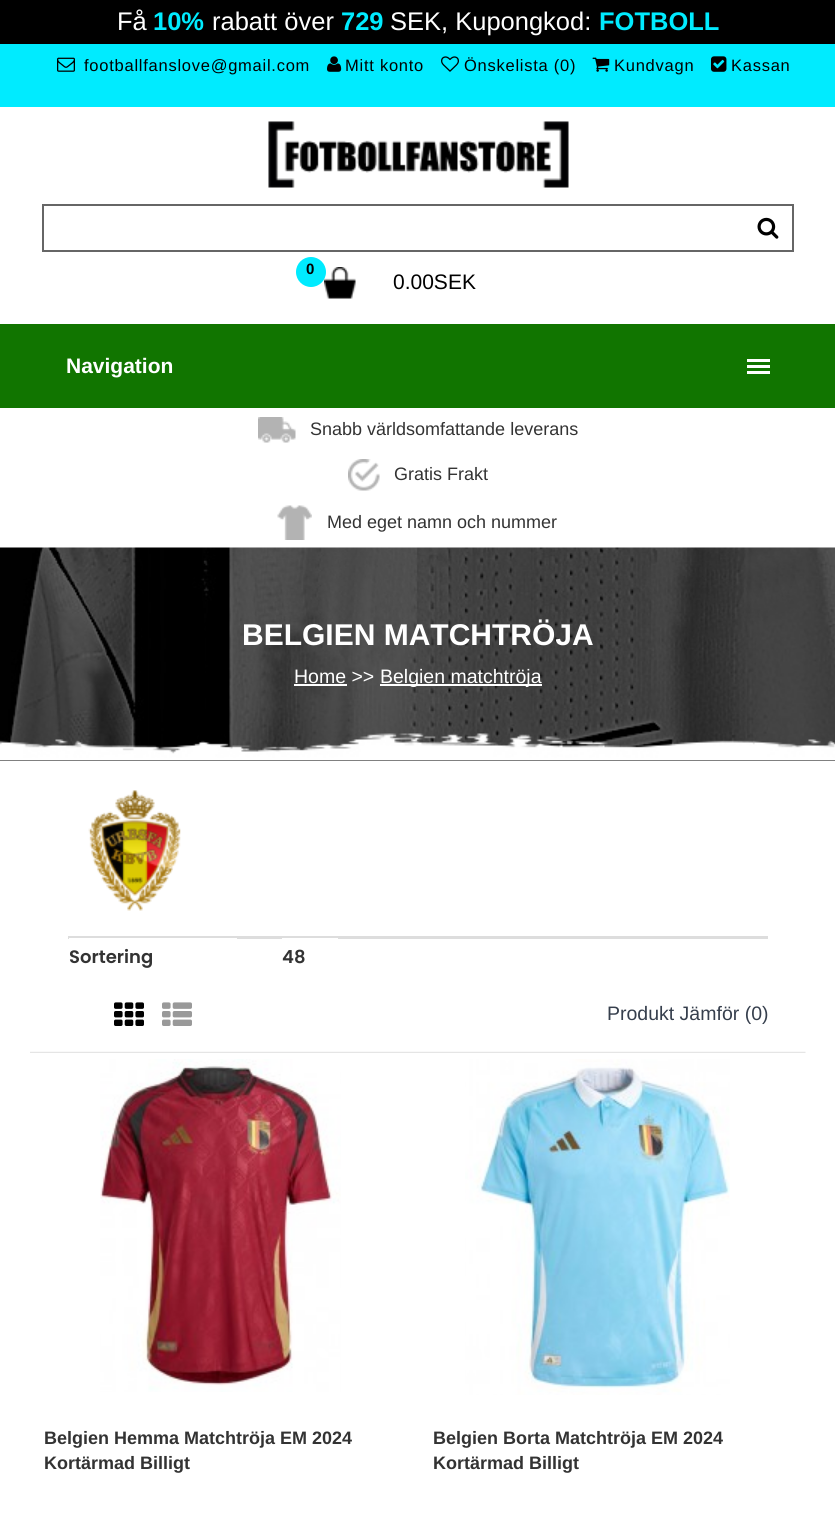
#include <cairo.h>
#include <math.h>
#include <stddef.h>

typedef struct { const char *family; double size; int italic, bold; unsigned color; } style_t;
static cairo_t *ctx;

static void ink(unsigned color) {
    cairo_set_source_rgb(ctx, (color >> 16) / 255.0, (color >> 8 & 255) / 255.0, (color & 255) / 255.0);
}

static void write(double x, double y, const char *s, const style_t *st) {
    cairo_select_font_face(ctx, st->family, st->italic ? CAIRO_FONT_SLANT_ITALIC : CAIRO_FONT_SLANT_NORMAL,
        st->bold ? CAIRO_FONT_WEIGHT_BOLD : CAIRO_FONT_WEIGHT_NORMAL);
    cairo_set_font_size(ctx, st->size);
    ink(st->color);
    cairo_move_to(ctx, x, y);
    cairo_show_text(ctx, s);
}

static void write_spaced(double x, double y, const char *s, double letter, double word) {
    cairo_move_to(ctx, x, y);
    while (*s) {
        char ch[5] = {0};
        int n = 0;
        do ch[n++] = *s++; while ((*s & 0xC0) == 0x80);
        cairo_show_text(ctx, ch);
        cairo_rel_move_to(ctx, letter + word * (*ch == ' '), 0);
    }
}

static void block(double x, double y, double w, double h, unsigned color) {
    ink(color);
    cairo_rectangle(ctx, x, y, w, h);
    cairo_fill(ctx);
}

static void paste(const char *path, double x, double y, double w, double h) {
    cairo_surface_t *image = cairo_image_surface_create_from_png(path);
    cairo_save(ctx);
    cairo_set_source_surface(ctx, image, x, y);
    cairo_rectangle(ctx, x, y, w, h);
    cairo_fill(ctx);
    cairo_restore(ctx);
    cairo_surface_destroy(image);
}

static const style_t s1 = {"Liberation Sans", 25.5, 0, 0, 0xffffff};
static const style_t s2 = {"Liberation Sans", 25.5, 0, 1, 0x00ebff};
static const style_t s3 = {"Liberation Sans", 15, 0, 1, 0x000000};
static const style_t s4 = {"Liberation Sans", 21, 0, 0, 0x000000};
static const style_t s5 = {"Liberation Sans", 21, 0, 1, 0xffffff};
static const style_t s6 = {"Liberation Sans", 18, 0, 0, 0x333333};
static const style_t s7 = {"Liberation Sans", 30, 0, 1, 0xffffff};
static const style_t s8 = {"Liberation Sans", 19.5, 0, 0, 0xffffff};
static const style_t s9 = {"Poppins SemiBold", 18, 0, 0, 0x333333};
static const style_t s10 = {"Liberation Sans", 19.5, 0, 0, 0x363f4d};
static const style_t s11 = {"Liberation Sans", 18, 0, 1, 0x333333};

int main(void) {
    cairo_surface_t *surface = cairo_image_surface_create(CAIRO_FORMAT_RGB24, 835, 1528);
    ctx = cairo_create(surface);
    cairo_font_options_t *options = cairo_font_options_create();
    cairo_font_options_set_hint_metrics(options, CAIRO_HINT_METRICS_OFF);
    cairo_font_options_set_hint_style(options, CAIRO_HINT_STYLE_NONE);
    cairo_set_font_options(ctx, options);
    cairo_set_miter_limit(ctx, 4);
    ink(0xffffff);
    cairo_paint(ctx);
    block(0, 0, 835, 44, 0x000000);
    write(117, 30, "Få", &s1);
    write(153, 30, "10%", &s2);
    write(212, 30, "rabatt över", &s1);
    write(341, 30, "729", &s2);
    write(390, 30, "SEK, Kupongkod:", &s1);
    write(599, 30, "FOTBOLL", &s2);
    block(0, 44, 835, 63, 0x00ebff);
    paste("pic1.png", 57, 57, 18, 15);
    cairo_select_font_face(ctx, "Liberation Sans", CAIRO_FONT_SLANT_NORMAL, CAIRO_FONT_WEIGHT_NORMAL);
    cairo_set_font_size(ctx, 16.5);
    ink(0x000000);
    write_spaced(84, 71, "footballfanslove@gmail.com", 0.75, 0);
    paste("pic2.png", 327, 56, 15, 16);
    write_spaced(345, 71, "Mitt konto", 0.75, 0);
    paste("pic3.png", 441, 56, 18, 16);
    write_spaced(464, 71, "Önskelista (0)", 0.75, 0);
    paste("pic4.png", 592, 57, 18, 15);
    write_spaced(614, 71, "Kundvagn", 0.75, 0);
    paste("pic5.png", 711, 56, 16, 16);
    write_spaced(731, 71, "Kassan", 0.75, 0);
    paste("pic6.png", 268, 121, 301, 67);
    cairo_rectangle(ctx, 43, 205, 750, 46);
    ink(0x666666);
    cairo_stroke(ctx);
    paste("pic7.png", 757, 217, 22, 22);
    paste("pic8.png", 324, 267, 32, 32);
    ink(0x00ebff);
    cairo_arc(ctx, 311, 272, 15, 0, 2 * M_PI);
    cairo_fill(ctx);
    write(306, 274, "0", &s3);
    write(393, 289, "0.00SEK", &s4);
    block(0, 324, 835, 84, 0x117500);
    write(66, 373, "Navigation", &s5);
    block(747, 359, 23, 3, 0xffffff);
    block(747, 365, 23, 3, 0xffffff);
    block(747, 371, 23, 3, 0xffffff);
    paste("pic9.png", 258, 417, 38, 26);
    write(310, 435, "Snabb världsomfattande leverans", &s6);
    paste("pic10.png", 348, 459, 32, 32);
    write(394, 480, "Gratis Frakt", &s6);
    paste("pic11.png", 277, 505, 35, 35);
    write(327, 528, "Med eget namn och nummer", &s6);
    block(0, 760, 835, 1, 0x000000);
    paste("pic12.png", 0, 547, 835, 214);
    write(242, 645, "BELGIEN MATCHTRÖJA", &s7);
    write(294, 683, "Home >>", &s8);
    block(294, 684, 53, 2, 0xffffff);
    block(380, 684, 162, 2, 0xffffff);
    write(380, 683, "Belgien matchtröja", &s8);
    paste("pic13.png", 88, 790, 93, 121);
    block(68, 936, 700, 3, 0xdddddd);
    block(69, 938, 168, 1, 0xffffff);
    write(69, 963, "Sortering", &s9);
    block(282, 938, 56, 1, 0xffffff);
    write(282, 963, "48", &s9);
    paste("pic14.png", 114, 1002, 30, 24);
    paste("pic15.png", 162, 1002, 30, 24);
    write(607, 1020, "Produkt Jämför (0)", &s10);
    paste("pic16.png", 30, 1051, 776, 2);
    paste("pic17.png", 100, 1059, 241, 333);
    write(44, 1444, "Belgien Hemma Matchtröja EM 2024", &s11);
    write(44, 1469, "Kortärmad Billigt", &s11);
    paste("pic18.png", 465, 1059, 265, 336);
    write(433, 1444, "Belgien Borta Matchtröja EM 2024", &s11);
    write(433, 1469, "Kortärmad Billigt", &s11);
    cairo_surface_write_to_png(surface, "screenshot.png");
    cairo_font_options_destroy(options);
    cairo_destroy(ctx);
    cairo_surface_destroy(surface);
    return 0;
}
